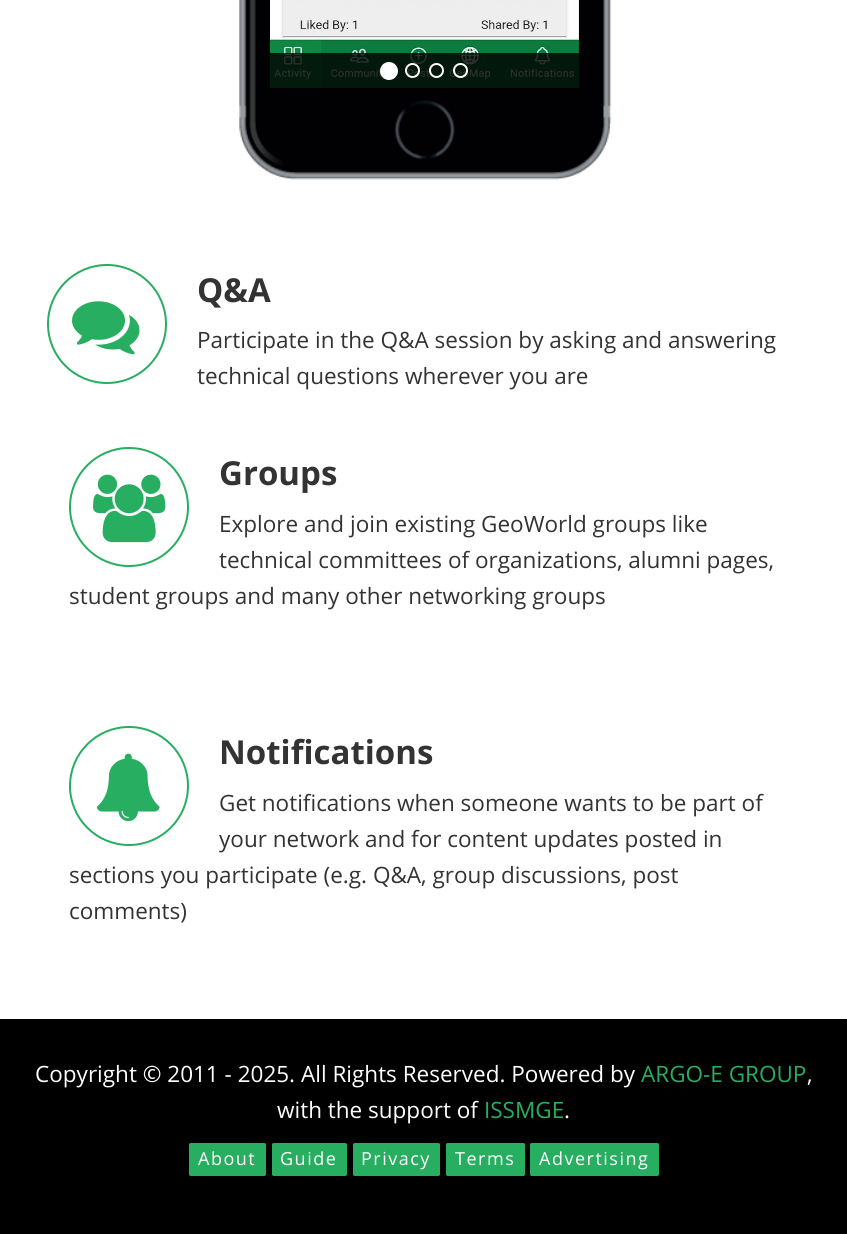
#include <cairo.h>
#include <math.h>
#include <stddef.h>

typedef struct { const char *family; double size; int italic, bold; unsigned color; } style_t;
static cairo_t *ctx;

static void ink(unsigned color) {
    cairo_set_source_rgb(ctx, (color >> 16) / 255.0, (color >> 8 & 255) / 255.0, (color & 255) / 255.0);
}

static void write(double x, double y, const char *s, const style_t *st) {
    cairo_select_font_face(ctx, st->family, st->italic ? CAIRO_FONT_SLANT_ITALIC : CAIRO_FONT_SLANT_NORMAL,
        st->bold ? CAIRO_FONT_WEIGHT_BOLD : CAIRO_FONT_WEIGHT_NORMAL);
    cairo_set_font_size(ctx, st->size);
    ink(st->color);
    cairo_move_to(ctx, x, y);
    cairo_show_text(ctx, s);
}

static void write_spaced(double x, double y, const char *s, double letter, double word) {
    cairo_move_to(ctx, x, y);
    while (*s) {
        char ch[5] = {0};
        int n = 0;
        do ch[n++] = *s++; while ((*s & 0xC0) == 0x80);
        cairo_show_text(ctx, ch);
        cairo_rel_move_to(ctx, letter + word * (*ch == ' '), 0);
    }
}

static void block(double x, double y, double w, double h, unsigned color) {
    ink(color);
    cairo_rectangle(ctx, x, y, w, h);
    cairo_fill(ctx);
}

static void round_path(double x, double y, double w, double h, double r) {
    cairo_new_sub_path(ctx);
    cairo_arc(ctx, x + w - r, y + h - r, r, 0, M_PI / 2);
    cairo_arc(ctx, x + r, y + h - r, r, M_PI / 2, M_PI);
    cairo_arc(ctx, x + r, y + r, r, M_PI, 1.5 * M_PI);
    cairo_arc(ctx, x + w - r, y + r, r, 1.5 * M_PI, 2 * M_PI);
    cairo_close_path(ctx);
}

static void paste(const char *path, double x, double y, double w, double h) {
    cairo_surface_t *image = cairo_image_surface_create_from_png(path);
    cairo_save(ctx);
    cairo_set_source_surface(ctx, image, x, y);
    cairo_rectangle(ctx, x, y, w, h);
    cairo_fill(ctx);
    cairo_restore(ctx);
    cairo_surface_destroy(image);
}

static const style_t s1 = {"Open Sans", 33, 0, 1, 0x333333};
static const style_t s2 = {"Open Sans", 22.5, 0, 0, 0x333333};
static const style_t s3 = {"Open Sans", 22.5, 0, 0, 0xffffff};
static const style_t s4 = {"Open Sans", 22.5, 0, 0, 0x27ae60};

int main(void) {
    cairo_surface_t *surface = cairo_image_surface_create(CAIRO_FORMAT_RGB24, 847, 1234);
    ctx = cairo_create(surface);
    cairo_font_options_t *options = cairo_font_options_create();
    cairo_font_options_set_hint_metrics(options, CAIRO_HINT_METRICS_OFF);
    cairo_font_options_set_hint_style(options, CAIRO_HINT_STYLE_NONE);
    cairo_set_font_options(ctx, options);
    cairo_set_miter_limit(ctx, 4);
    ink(0xffffff);
    cairo_paint(ctx);
    paste("pic1.png", 239, 0, 373, 180);
    paste("pic2.png", 270, 0, 309, 88);
    cairo_set_source_rgba(ctx, 0, 0, 0, 0.8);
    cairo_rectangle(ctx, 270, 53, 309, 35);
    cairo_fill(ctx);
    ink(0xffffff);
    cairo_arc(ctx, 389, 71, 8, 0, 2 * M_PI);
    cairo_fill_preserve(ctx);
    cairo_stroke(ctx);
    cairo_arc(ctx, 412.5, 70.5, 6.5, 0, 2 * M_PI);
    cairo_stroke(ctx);
    cairo_arc(ctx, 436.5, 70.5, 6.5, 0, 2 * M_PI);
    cairo_stroke(ctx);
    cairo_arc(ctx, 460.5, 70.5, 6.5, 0, 2 * M_PI);
    cairo_stroke(ctx);
    cairo_arc(ctx, 107, 324, 59, 0, 2 * M_PI);
    ink(0x27ae60);
    cairo_stroke(ctx);
    paste("pic3.png", 72, 301, 68, 54);
    write(197, 302, "Q&A", &s1);
    write(197, 348, "Participate in the Q&A session by asking and answering", &s2);
    write(197, 384, "technical questions wherever you are", &s2);
    cairo_new_path(ctx);
    cairo_arc(ctx, 129, 507, 59, 0, 2 * M_PI);
    ink(0x27ae60);
    cairo_stroke(ctx);
    paste("pic4.png", 93, 474, 73, 69);
    write(219, 485, "Groups", &s1);
    write(219, 532, "Explore and join existing GeoWorld groups like", &s2);
    write(219, 568, "technical committees of organizations, alumni pages,", &s2);
    write(69, 604, "student groups and many other networking groups", &s2);
    cairo_new_path(ctx);
    cairo_arc(ctx, 129, 786, 59, 0, 2 * M_PI);
    ink(0x27ae60);
    cairo_stroke(ctx);
    paste("pic5.png", 96, 753, 64, 69);
    write(219, 764, "Notifications", &s1);
    write(219, 811, "Get notifications when someone wants to be part of", &s2);
    write(219, 847, "your network and for content updates posted in", &s2);
    write(69, 883, "sections you participate (e.g. Q&A, group discussions, post", &s2);
    write(69, 919, "comments)", &s2);
    block(0, 1019, 847, 215, 0x000000);
    write(35, 1082, "Copyright © 2011 - 2025. All Rights Reserved. Powered by", &s3);
    write(641, 1082, "ARGO-E GROUP", &s4);
    write(807, 1082, ",", &s3);
    write(277, 1118, "with the support of", &s3);
    write(484, 1118, "ISSMGE", &s4);
    write(564, 1118, ".", &s3);
    ink(0x27ae60);
    round_path(190, 1144, 75, 31, 0.5);
    cairo_fill_preserve(ctx);
    cairo_stroke(ctx);
    cairo_set_font_size(ctx, 18);
    ink(0xffffff);
    write_spaced(198, 1165, "About", 1.5, 0);
    ink(0x27ae60);
    round_path(273, 1144, 73, 31, 0.5);
    cairo_fill_preserve(ctx);
    cairo_stroke(ctx);
    ink(0xffffff);
    write_spaced(280, 1165, "Guide", 1.5, 0);
    ink(0x27ae60);
    round_path(354, 1144, 85, 31, 0.5);
    cairo_fill_preserve(ctx);
    cairo_stroke(ctx);
    ink(0xffffff);
    write_spaced(361, 1165, "Privacy", 1.5, 0);
    ink(0x27ae60);
    round_path(447, 1144, 77, 31, 0.5);
    cairo_fill_preserve(ctx);
    cairo_stroke(ctx);
    ink(0xffffff);
    write_spaced(455, 1165, "Terms", 1.5, 0);
    ink(0x27ae60);
    round_path(531, 1144, 127, 31, 0.5);
    cairo_fill_preserve(ctx);
    cairo_stroke(ctx);
    ink(0xffffff);
    write_spaced(539, 1165, "Advertising", 1.5, 0);
    cairo_surface_write_to_png(surface, "screenshot.png");
    cairo_font_options_destroy(options);
    cairo_destroy(ctx);
    cairo_surface_destroy(surface);
    return 0;
}
